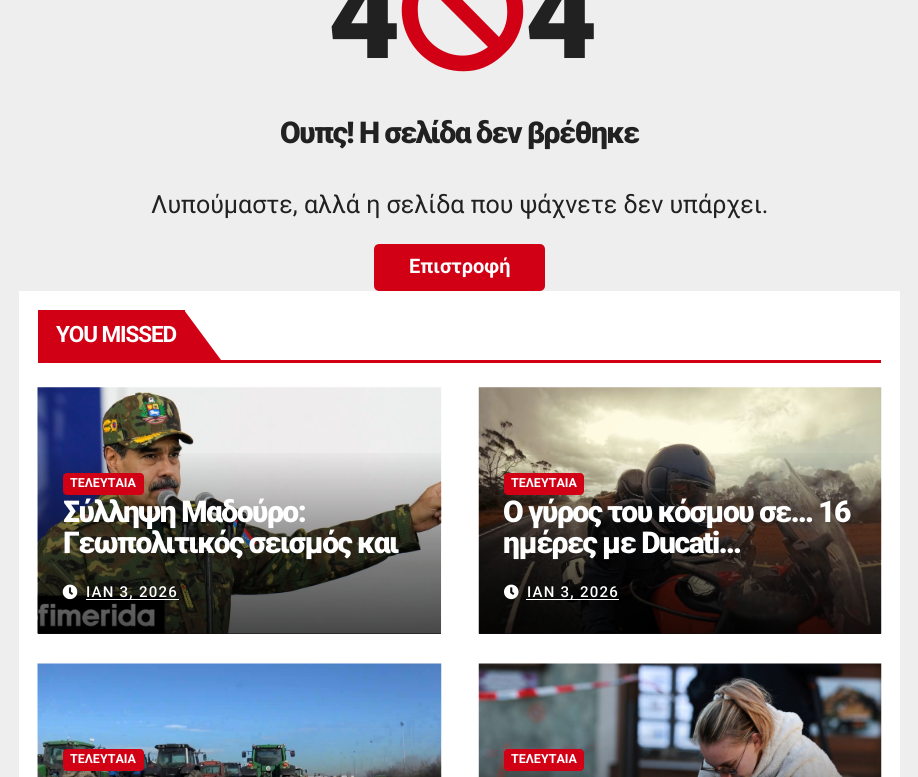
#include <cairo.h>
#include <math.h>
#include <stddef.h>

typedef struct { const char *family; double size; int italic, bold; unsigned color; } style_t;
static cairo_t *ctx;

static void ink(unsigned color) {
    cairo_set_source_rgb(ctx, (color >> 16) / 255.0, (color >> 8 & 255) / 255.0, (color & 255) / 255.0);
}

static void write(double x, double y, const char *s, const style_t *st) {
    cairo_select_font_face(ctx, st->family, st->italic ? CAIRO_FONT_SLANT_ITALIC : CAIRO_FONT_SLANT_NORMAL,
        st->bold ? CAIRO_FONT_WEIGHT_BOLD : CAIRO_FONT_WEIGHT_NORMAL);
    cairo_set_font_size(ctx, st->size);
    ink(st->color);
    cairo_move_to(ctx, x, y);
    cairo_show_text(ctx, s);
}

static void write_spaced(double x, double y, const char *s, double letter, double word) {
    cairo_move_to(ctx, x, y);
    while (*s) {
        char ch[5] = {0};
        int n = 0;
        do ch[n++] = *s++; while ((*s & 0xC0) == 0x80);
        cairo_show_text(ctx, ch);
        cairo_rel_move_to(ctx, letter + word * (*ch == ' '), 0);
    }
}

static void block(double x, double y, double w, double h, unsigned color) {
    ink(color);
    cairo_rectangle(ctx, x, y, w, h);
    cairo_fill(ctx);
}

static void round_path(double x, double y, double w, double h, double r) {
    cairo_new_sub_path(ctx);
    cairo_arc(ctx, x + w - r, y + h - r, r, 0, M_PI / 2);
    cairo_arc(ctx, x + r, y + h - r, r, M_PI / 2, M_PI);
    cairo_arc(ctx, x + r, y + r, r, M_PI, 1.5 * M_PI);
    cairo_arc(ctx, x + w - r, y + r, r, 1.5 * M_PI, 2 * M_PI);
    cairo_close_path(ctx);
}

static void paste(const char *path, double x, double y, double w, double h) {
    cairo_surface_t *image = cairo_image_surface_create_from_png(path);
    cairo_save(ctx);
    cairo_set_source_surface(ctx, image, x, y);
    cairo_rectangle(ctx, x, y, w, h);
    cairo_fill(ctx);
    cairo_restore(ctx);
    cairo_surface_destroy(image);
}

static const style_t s1 = {"Roboto", 25, 0, 0, 0x212121};
static const style_t s2 = {"Roboto", 20, 0, 1, 0xffffff};
static const style_t s3 = {"Roboto", 12.5, 0, 1, 0xffffff};

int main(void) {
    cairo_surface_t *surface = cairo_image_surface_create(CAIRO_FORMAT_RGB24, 918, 777);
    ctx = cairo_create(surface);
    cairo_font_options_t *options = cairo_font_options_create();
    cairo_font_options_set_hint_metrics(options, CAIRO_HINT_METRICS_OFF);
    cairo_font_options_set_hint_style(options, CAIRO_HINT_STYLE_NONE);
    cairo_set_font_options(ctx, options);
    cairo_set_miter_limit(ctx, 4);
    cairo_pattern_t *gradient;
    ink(0xeeeeee);
    cairo_paint(ctx);
    cairo_select_font_face(ctx, "Roboto Black", CAIRO_FONT_SLANT_NORMAL, CAIRO_FONT_WEIGHT_NORMAL);
    cairo_set_font_size(ctx, 125);
    ink(0x212121);
    write_spaced(328, 58, "4", -6, 0);
    ink(0xd10014);
    cairo_new_path(ctx);
    cairo_move_to(ctx, 420, -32);
    cairo_curve_to(ctx, 460, -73, 528, -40, 523, 17);
    cairo_curve_to(ctx, 521, 31, 515, 44, 505, 53);
    cairo_curve_to(ctx, 495, 63, 483, 70, 469, 71);
    cairo_curve_to(ctx, 412, 76, 379, 8, 420, -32);
    cairo_close_path(ctx);
    cairo_move_to(ctx, 507, 7);
    cairo_curve_to(ctx, 505, -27, 465, -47, 437, -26);
    cairo_line_to(ctx, 499, 37);
    cairo_curve_to(ctx, 506, 28, 508, 18, 507, 7);
    cairo_close_path(ctx);
    cairo_move_to(ctx, 418, 14);
    cairo_curve_to(ctx, 420, 48, 460, 68, 488, 47);
    cairo_line_to(ctx, 426, -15);
    cairo_curve_to(ctx, 419, -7, 417, 3, 418, 14);
    cairo_close_path(ctx);
    cairo_fill(ctx);
    ink(0x212121);
    write_spaced(525, 58, "4", -6, 0);
    cairo_set_font_size(ctx, 30);
    write_spaced(280, 143, "Ουπς! Η σελίδα δεν βρέθηκε", -1.5, 0);
    write(151, 213, "Λυπούμαστε, αλλά η σελίδα που ψάχνετε δεν υπάρχει.", &s1);
    ink(0xd10014);
    round_path(375.5, 245.5, 168, 44, 3.5);
    cairo_fill_preserve(ctx);
    cairo_set_line_width(ctx, 3);
    cairo_stroke(ctx);
    write(409, 273, "Επιστροφή", &s2);
    block(19, 291, 881, 486, 0xffffff);
    block(38, 360, 843, 3, 0xd10014);
    block(38, 310, 147, 50, 0xd10014);
    cairo_set_font_size(ctx, 22.5);
    ink(0xffffff);
    write_spaced(56, 342, "YOU MISSED", -1.1, 0);
    ink(0xd10014);
    cairo_new_path(ctx);
    cairo_move_to(ctx, 184, 360);
    cairo_line_to(ctx, 184, 310);
    cairo_line_to(ctx, 221, 360);
    cairo_close_path(ctx);
    cairo_fill(ctx);
    block(38, 633, 403, 1, 0x333333);
    paste("pic1.png", 37, 387, 405, 247);
    gradient = cairo_pattern_create_linear(239, 448, 239, 634);
    cairo_pattern_add_color_stop_rgba(gradient, 0, 0, 0, 0, 0);
    cairo_pattern_add_color_stop_rgba(gradient, 0.5, 0, 0, 0, 0.4);
    cairo_pattern_add_color_stop_rgba(gradient, 1, 0, 0, 0, 0.7);
    cairo_set_source(ctx, gradient);
    cairo_pattern_destroy(gradient);
    cairo_rectangle(ctx, 38, 453, 403, 181);
    cairo_fill(ctx);
    ink(0xd10014);
    round_path(63, 473, 81, 22, 4);
    cairo_fill(ctx);
    write(70, 487, "ΤΕΛΕΥΤΑΙΑ", &s3);
    cairo_select_font_face(ctx, "Roboto Black", CAIRO_FONT_SLANT_NORMAL, CAIRO_FONT_WEIGHT_NORMAL);
    cairo_set_font_size(ctx, 30);
    write_spaced(63, 522, "Σύλληψη Μαδούρο:", -1.5, 0);
    write_spaced(63, 553, "Γεωπολιτικός σεισμός και", -1.5, 0);
    paste("pic2.png", 62, 584, 16, 16);
    block(86, 599, 93, 1, 0xffffff);
    cairo_select_font_face(ctx, "Roboto Medium", CAIRO_FONT_SLANT_NORMAL, CAIRO_FONT_WEIGHT_NORMAL);
    cairo_set_font_size(ctx, 15);
    write_spaced(86, 597, "ΙΑΝ 3, 2026", 1.25, 0);
    block(479, 633, 402, 1, 0x333333);
    paste("pic3.png", 478, 387, 404, 247);
    gradient = cairo_pattern_create_linear(680, 448, 680, 634);
    cairo_pattern_add_color_stop_rgba(gradient, 0, 0, 0, 0, 0);
    cairo_pattern_add_color_stop_rgba(gradient, 0.5, 0, 0, 0, 0.4);
    cairo_pattern_add_color_stop_rgba(gradient, 1, 0, 0, 0, 0.7);
    cairo_set_source(ctx, gradient);
    cairo_pattern_destroy(gradient);
    cairo_rectangle(ctx, 479, 453, 402, 181);
    cairo_fill(ctx);
    ink(0xd10014);
    round_path(504, 473, 80, 22, 4);
    cairo_fill(ctx);
    write(511, 487, "ΤΕΛΕΥΤΑΙΑ", &s3);
    cairo_select_font_face(ctx, "Roboto Black", CAIRO_FONT_SLANT_NORMAL, CAIRO_FONT_WEIGHT_NORMAL);
    cairo_set_font_size(ctx, 30);
    write_spaced(503, 522, "Ο γύρος του κόσμου σε… 16", -1.5, 0);
    write_spaced(503, 553, "ημέρες με Ducati…", -1.5, 0);
    paste("pic4.png", 504, 584, 15, 16);
    block(526, 599, 93, 1, 0xffffff);
    cairo_select_font_face(ctx, "Roboto Medium", CAIRO_FONT_SLANT_NORMAL, CAIRO_FONT_WEIGHT_NORMAL);
    cairo_set_font_size(ctx, 15);
    write_spaced(527, 597, "ΙΑΝ 3, 2026", 1.25, 0);
    paste("pic5.png", 37, 663, 405, 114);
    ink(0xd10014);
    round_path(63, 749, 81, 22, 4);
    cairo_fill(ctx);
    write(70, 763, "ΤΕΛΕΥΤΑΙΑ", &s3);
    paste("pic6.png", 478, 663, 404, 114);
    ink(0xd10014);
    round_path(504, 749, 80, 22, 4);
    cairo_fill(ctx);
    write(511, 763, "ΤΕΛΕΥΤΑΙΑ", &s3);
    cairo_surface_write_to_png(surface, "screenshot.png");
    cairo_font_options_destroy(options);
    cairo_destroy(ctx);
    cairo_surface_destroy(surface);
    return 0;
}
